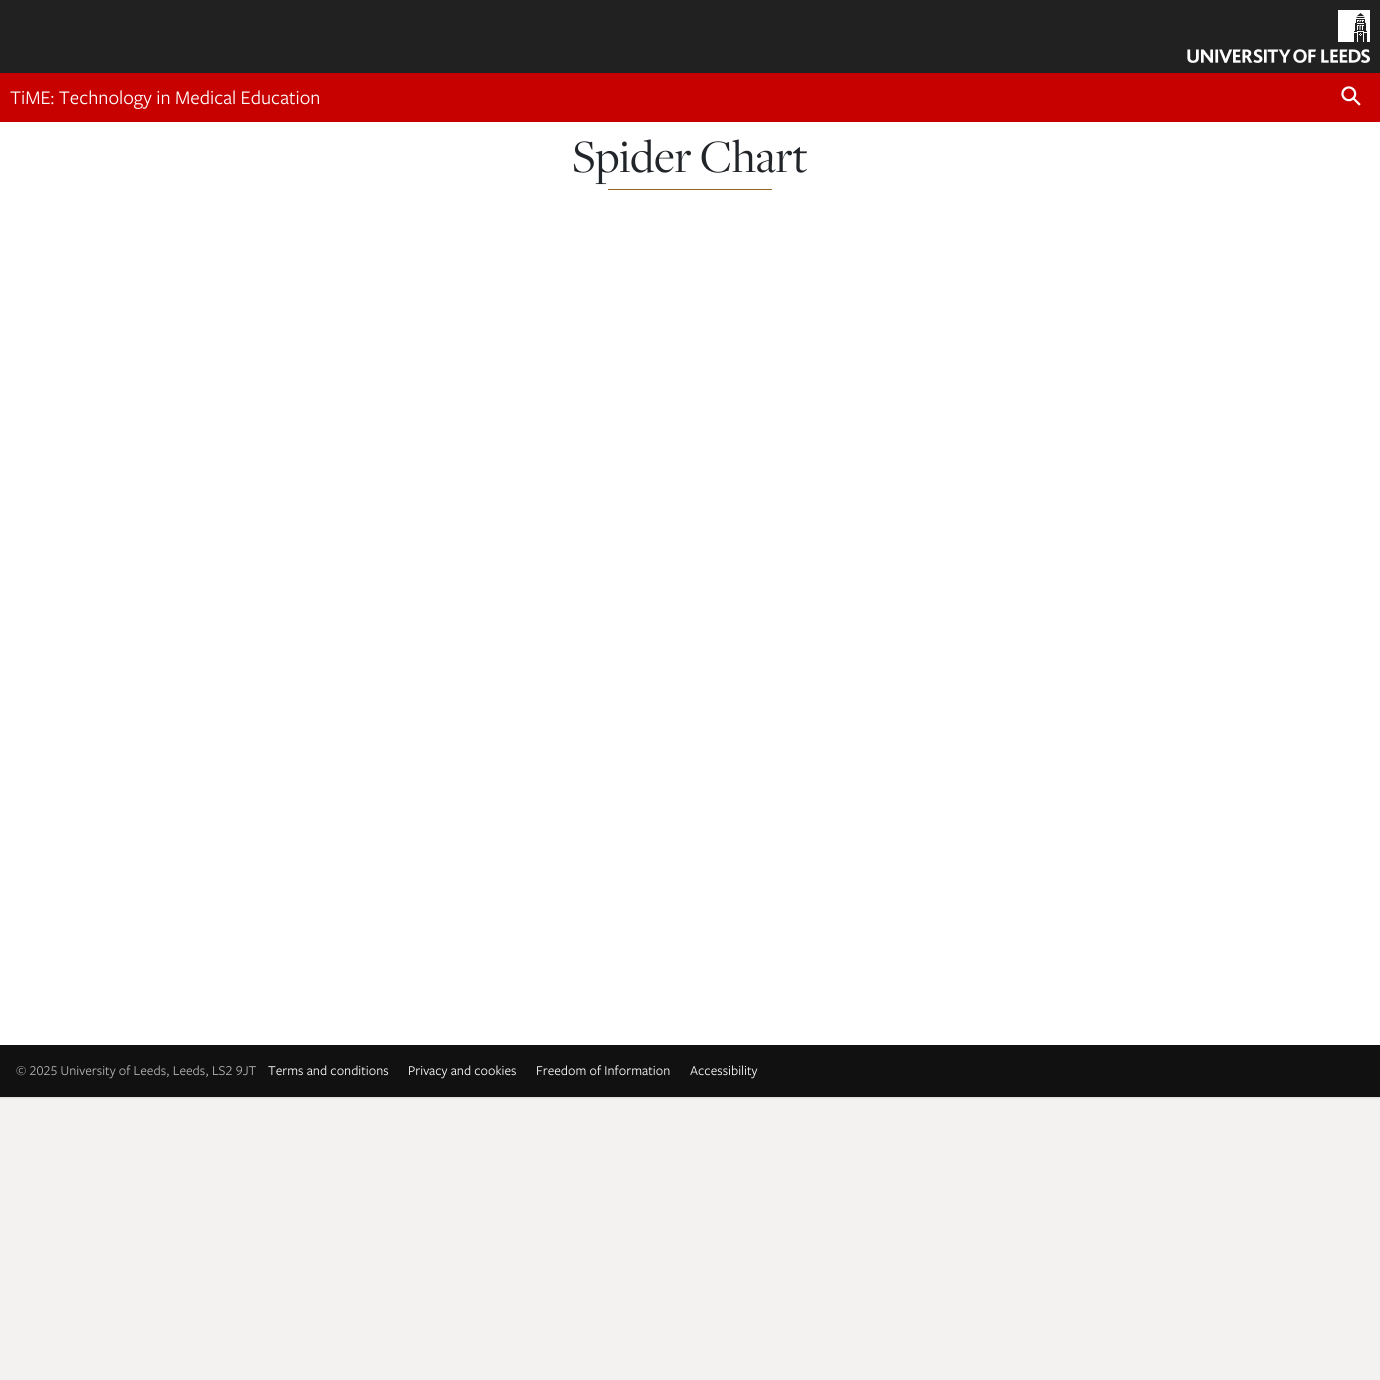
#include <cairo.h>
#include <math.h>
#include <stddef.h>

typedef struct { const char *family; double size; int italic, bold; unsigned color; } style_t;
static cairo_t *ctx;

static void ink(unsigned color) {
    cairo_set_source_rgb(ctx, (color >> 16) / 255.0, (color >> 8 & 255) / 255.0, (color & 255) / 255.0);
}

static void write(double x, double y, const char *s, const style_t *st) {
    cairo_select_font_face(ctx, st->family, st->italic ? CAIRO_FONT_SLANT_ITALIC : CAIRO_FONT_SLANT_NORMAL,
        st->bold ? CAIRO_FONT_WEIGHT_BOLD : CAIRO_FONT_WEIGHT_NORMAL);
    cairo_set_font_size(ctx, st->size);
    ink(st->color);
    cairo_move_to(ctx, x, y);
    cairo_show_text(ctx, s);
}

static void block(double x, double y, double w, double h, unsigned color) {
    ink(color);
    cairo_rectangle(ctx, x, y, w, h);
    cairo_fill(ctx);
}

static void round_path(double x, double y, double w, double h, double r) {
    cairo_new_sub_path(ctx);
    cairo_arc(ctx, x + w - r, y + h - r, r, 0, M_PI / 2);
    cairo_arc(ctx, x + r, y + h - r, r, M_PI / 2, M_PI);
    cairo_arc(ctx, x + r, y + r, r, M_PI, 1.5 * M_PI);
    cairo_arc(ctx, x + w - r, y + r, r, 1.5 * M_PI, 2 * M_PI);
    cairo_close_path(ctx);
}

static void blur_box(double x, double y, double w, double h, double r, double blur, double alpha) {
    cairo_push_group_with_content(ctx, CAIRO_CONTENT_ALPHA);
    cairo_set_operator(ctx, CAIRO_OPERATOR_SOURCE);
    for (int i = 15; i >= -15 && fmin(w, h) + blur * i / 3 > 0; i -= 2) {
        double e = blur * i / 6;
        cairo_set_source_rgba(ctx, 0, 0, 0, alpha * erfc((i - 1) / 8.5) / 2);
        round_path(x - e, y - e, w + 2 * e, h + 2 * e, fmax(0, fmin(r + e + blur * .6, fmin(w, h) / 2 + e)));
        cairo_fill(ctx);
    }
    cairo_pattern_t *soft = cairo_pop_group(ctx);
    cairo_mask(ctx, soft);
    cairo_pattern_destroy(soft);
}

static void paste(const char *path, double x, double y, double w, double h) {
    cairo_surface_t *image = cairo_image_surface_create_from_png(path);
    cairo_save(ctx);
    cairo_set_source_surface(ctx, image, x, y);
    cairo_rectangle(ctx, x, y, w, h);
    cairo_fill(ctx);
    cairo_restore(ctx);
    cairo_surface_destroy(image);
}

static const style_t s1 = {"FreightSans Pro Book", 20, 0, 0, 0xffffff};
static const style_t s2 = {"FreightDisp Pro", 48, 0, 0, 0x212529};
static const style_t s3 = {"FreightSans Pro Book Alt", 14, 0, 0, 0xb7b7b7};
static const style_t s4 = {"FreightSans Pro Book", 14, 0, 0, 0xffffff};

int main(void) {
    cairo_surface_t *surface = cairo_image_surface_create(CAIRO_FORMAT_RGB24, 1380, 1380);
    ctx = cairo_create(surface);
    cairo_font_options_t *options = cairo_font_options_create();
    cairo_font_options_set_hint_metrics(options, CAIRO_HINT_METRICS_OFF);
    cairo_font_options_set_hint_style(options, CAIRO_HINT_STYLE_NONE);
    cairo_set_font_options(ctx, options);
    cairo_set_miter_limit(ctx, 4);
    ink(0xf4f2f0);
    cairo_paint(ctx);
    ink(0x000000);
    blur_box(-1, -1, 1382, 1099, 0, 1, 0.1);
    block(0, 122, 1380, 923, 0xffffff);
    block(0, 0, 1380, 73, 0x212121);
    paste("pic1.png", 1187, 10, 183, 53);
    block(0, 73, 1380, 49, 0xc70000);
    write(10, 104, "TiME: Technology in Medical Education", &s1);
    paste("pic2.png", 1341, 86, 20, 20);
    write(572, 172, "Spider Chart", &s2);
    block(608, 189, 164, 1, 0x946829);
    block(0, 1045, 1380, 52, 0x111111);
    write(16, 1075, "© 2025 University of Leeds, Leeds, LS2 9JT", &s3);
    write(268, 1075, "Terms and conditions", &s4);
    write(408, 1075, "Privacy and cookies", &s4);
    write(536, 1075, "Freedom of Information", &s4);
    write(690, 1075, "Accessibility", &s4);
    cairo_surface_write_to_png(surface, "screenshot.png");
    cairo_font_options_destroy(options);
    cairo_destroy(ctx);
    cairo_surface_destroy(surface);
    return 0;
}
